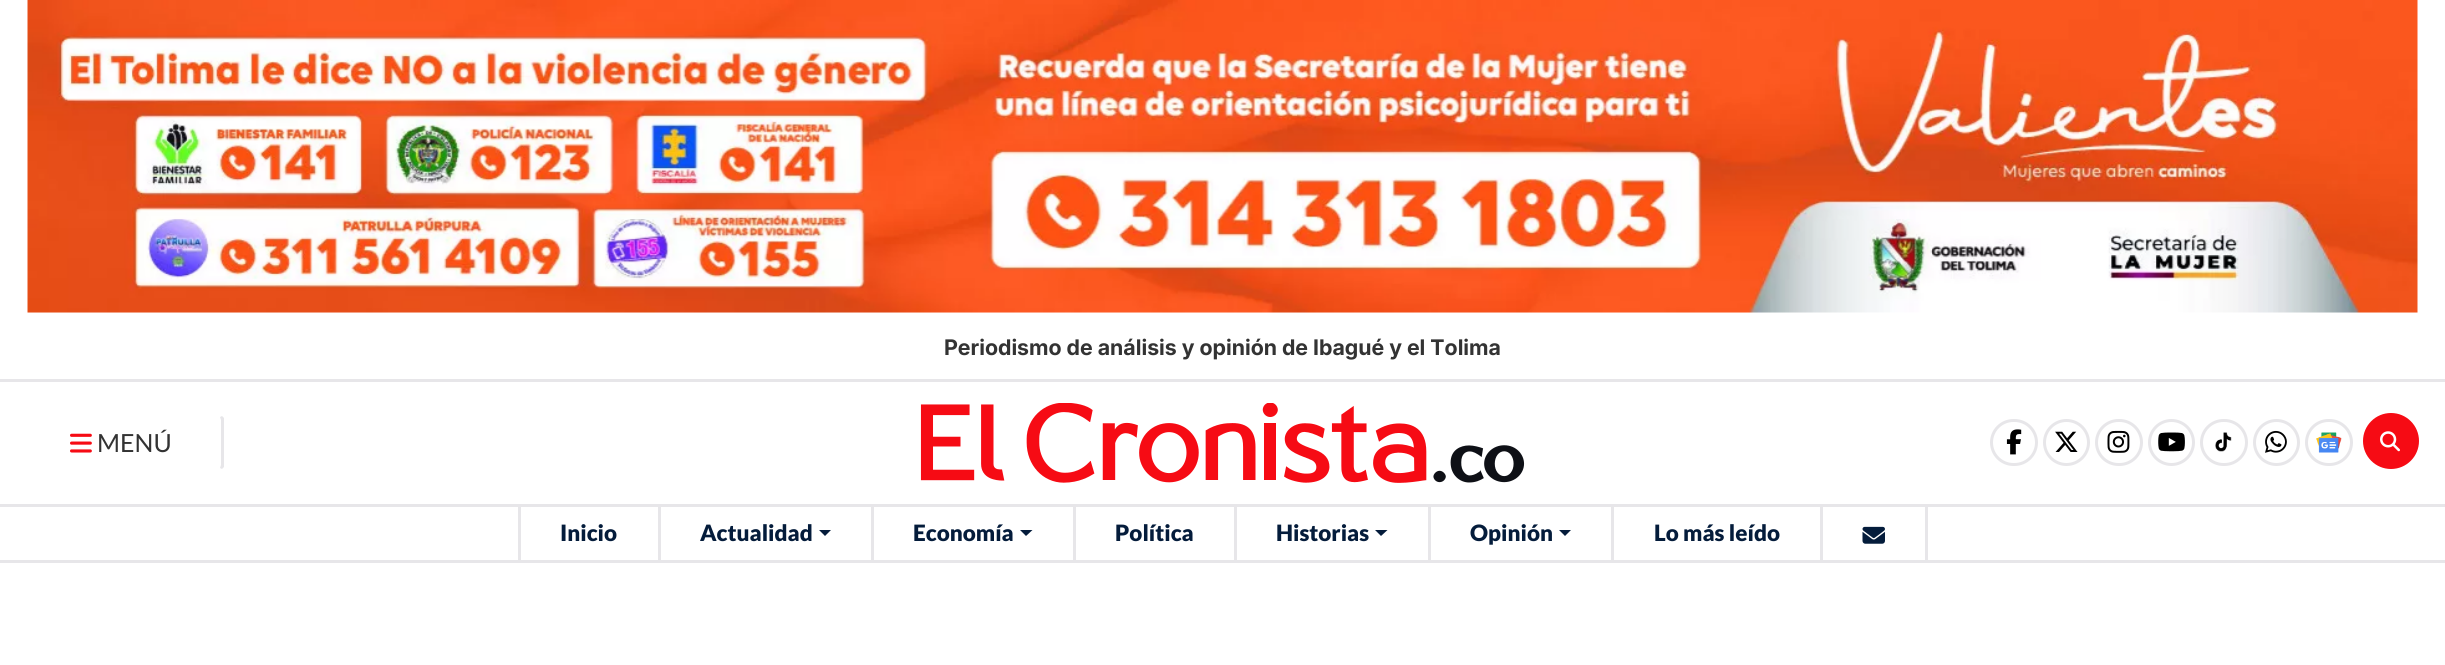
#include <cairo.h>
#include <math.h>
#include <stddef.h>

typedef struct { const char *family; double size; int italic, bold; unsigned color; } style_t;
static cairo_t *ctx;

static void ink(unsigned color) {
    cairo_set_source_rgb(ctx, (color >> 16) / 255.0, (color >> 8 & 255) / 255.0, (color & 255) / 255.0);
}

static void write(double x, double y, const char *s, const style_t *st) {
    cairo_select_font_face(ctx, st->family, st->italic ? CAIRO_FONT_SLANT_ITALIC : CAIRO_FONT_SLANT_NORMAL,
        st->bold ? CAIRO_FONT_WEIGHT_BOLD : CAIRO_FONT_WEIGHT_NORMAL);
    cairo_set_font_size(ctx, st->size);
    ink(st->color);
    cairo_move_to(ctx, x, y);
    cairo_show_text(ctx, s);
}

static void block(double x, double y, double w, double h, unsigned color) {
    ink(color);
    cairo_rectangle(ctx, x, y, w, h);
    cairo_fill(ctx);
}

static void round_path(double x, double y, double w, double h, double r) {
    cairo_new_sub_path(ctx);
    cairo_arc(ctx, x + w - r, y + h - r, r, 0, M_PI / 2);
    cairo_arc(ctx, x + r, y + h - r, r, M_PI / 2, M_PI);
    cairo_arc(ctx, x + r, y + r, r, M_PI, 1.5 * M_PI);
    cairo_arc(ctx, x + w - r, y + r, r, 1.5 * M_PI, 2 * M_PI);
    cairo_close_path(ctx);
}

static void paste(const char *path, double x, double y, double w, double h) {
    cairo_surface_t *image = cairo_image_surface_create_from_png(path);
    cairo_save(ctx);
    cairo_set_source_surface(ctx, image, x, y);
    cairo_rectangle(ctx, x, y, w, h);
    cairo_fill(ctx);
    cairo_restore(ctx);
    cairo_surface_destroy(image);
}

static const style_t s1 = {"Inter", 21.5, 0, 1, 0x333333};
static const style_t s2 = {"Lato", 25, 0, 0, 0x333333};
static const style_t s3 = {"Lato Black", 22.5, 0, 0, 0x041c3b};

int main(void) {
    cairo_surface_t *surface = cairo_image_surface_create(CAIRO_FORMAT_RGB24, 2445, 665);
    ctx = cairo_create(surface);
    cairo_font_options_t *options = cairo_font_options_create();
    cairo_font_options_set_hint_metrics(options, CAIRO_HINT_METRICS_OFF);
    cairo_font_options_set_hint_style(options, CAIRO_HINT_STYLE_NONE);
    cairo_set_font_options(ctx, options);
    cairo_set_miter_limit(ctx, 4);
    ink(0xffffff);
    cairo_paint(ctx);
    paste("pic1.png", 27, 0, 2391, 313);
    block(0, 379, 2445, 3, 0xe7e6e9);
    write(944, 355, "Periodismo de análisis y opinión de Ibagué y el Tolima", &s1);
    ink(0xe7e6e9);
    cairo_new_path(ctx);
    cairo_move_to(ctx, 224, 467);
    cairo_line_to(ctx, 222, 469);
    cairo_line_to(ctx, 220, 468);
    cairo_line_to(ctx, 221, 465);
    cairo_line_to(ctx, 221, 420);
    cairo_line_to(ctx, 220, 417);
    cairo_line_to(ctx, 222, 416);
    cairo_line_to(ctx, 224, 418);
    cairo_close_path(ctx);
    cairo_fill(ctx);
    paste("pic2.png", 70, 433, 22, 20);
    write(97, 452, "MENÚ", &s2);
    paste("pic3.png", 920, 403, 605, 80);
    round_path(1991.5, 420.5, 45, 44, 22);
    ink(0xe7e6e9);
    cairo_set_line_width(ctx, 3);
    cairo_stroke(ctx);
    paste("pic4.png", 2006, 429, 16, 26);
    cairo_arc(ctx, 2066.5, 442.5, 22, 0, 2 * M_PI);
    cairo_stroke(ctx);
    paste("pic5.png", 2055, 431, 23, 21);
    round_path(2096.5, 420.5, 45, 44, 22);
    cairo_stroke(ctx);
    paste("pic6.png", 2107, 430, 23, 23);
    cairo_arc(ctx, 2171.5, 442.5, 22, 0, 2 * M_PI);
    cairo_stroke(ctx);
    paste("pic7.png", 2158, 432, 27, 20);
    round_path(2201.5, 420.5, 45, 44, 22);
    cairo_stroke(ctx);
    paste("pic8.png", 2215, 432, 17, 20);
    cairo_arc(ctx, 2276.5, 442.5, 22, 0, 2 * M_PI);
    cairo_stroke(ctx);
    paste("pic9.png", 2265, 430, 22, 23);
    round_path(2306.5, 420.5, 45, 44, 22);
    cairo_stroke(ctx);
    paste("pic10.png", 2316, 432, 26, 21);
    ink(0xf60b14);
    cairo_arc(ctx, 2391, 441, 28, 0, 2 * M_PI);
    cairo_fill(ctx);
    paste("pic11.png", 2380, 431, 20, 21);
    block(0, 504, 2445, 3, 0xe7e6e9);
    block(0, 560, 2445, 3, 0xe7e6e9);
    block(658, 506, 3, 54, 0xe7e6e9);
    block(518, 506, 3, 54, 0xe7e6e9);
    write(560, 541, "Inicio", &s3);
    block(871, 506, 3, 54, 0xe7e6e9);
    write(700, 541, "Actualidad", &s3);
    cairo_new_path(ctx);
    cairo_move_to(ctx, 819, 530);
    cairo_line_to(ctx, 831, 530);
    cairo_line_to(ctx, 825, 536);
    cairo_close_path(ctx);
    cairo_fill(ctx);
    block(1073, 506, 3, 54, 0xe7e6e9);
    write(913, 541, "Economía", &s3);
    cairo_new_path(ctx);
    cairo_move_to(ctx, 1020, 530);
    cairo_line_to(ctx, 1032.5, 530);
    cairo_line_to(ctx, 1026, 536);
    cairo_close_path(ctx);
    cairo_fill(ctx);
    block(1234, 506, 3, 54, 0xe7e6e9);
    write(1115, 541, "Política", &s3);
    block(1428, 506, 3, 54, 0xe7e6e9);
    write(1276, 541, "Historias", &s3);
    cairo_new_path(ctx);
    cairo_move_to(ctx, 1375, 530);
    cairo_line_to(ctx, 1387.5, 530);
    cairo_line_to(ctx, 1381, 536);
    cairo_close_path(ctx);
    cairo_fill(ctx);
    block(1611, 506, 3, 54, 0xe7e6e9);
    write(1470, 541, "Opinión", &s3);
    cairo_new_path(ctx);
    cairo_move_to(ctx, 1559, 530);
    cairo_line_to(ctx, 1571, 530);
    cairo_line_to(ctx, 1565, 536);
    cairo_close_path(ctx);
    cairo_fill(ctx);
    block(1820, 506, 3, 54, 0xe7e6e9);
    write(1654, 541, "Lo más leído", &s3);
    block(1925, 506, 3, 54, 0xe7e6e9);
    paste("pic12.png", 1862, 526, 23, 18);
    cairo_surface_write_to_png(surface, "screenshot.png");
    cairo_font_options_destroy(options);
    cairo_destroy(ctx);
    cairo_surface_destroy(surface);
    return 0;
}
